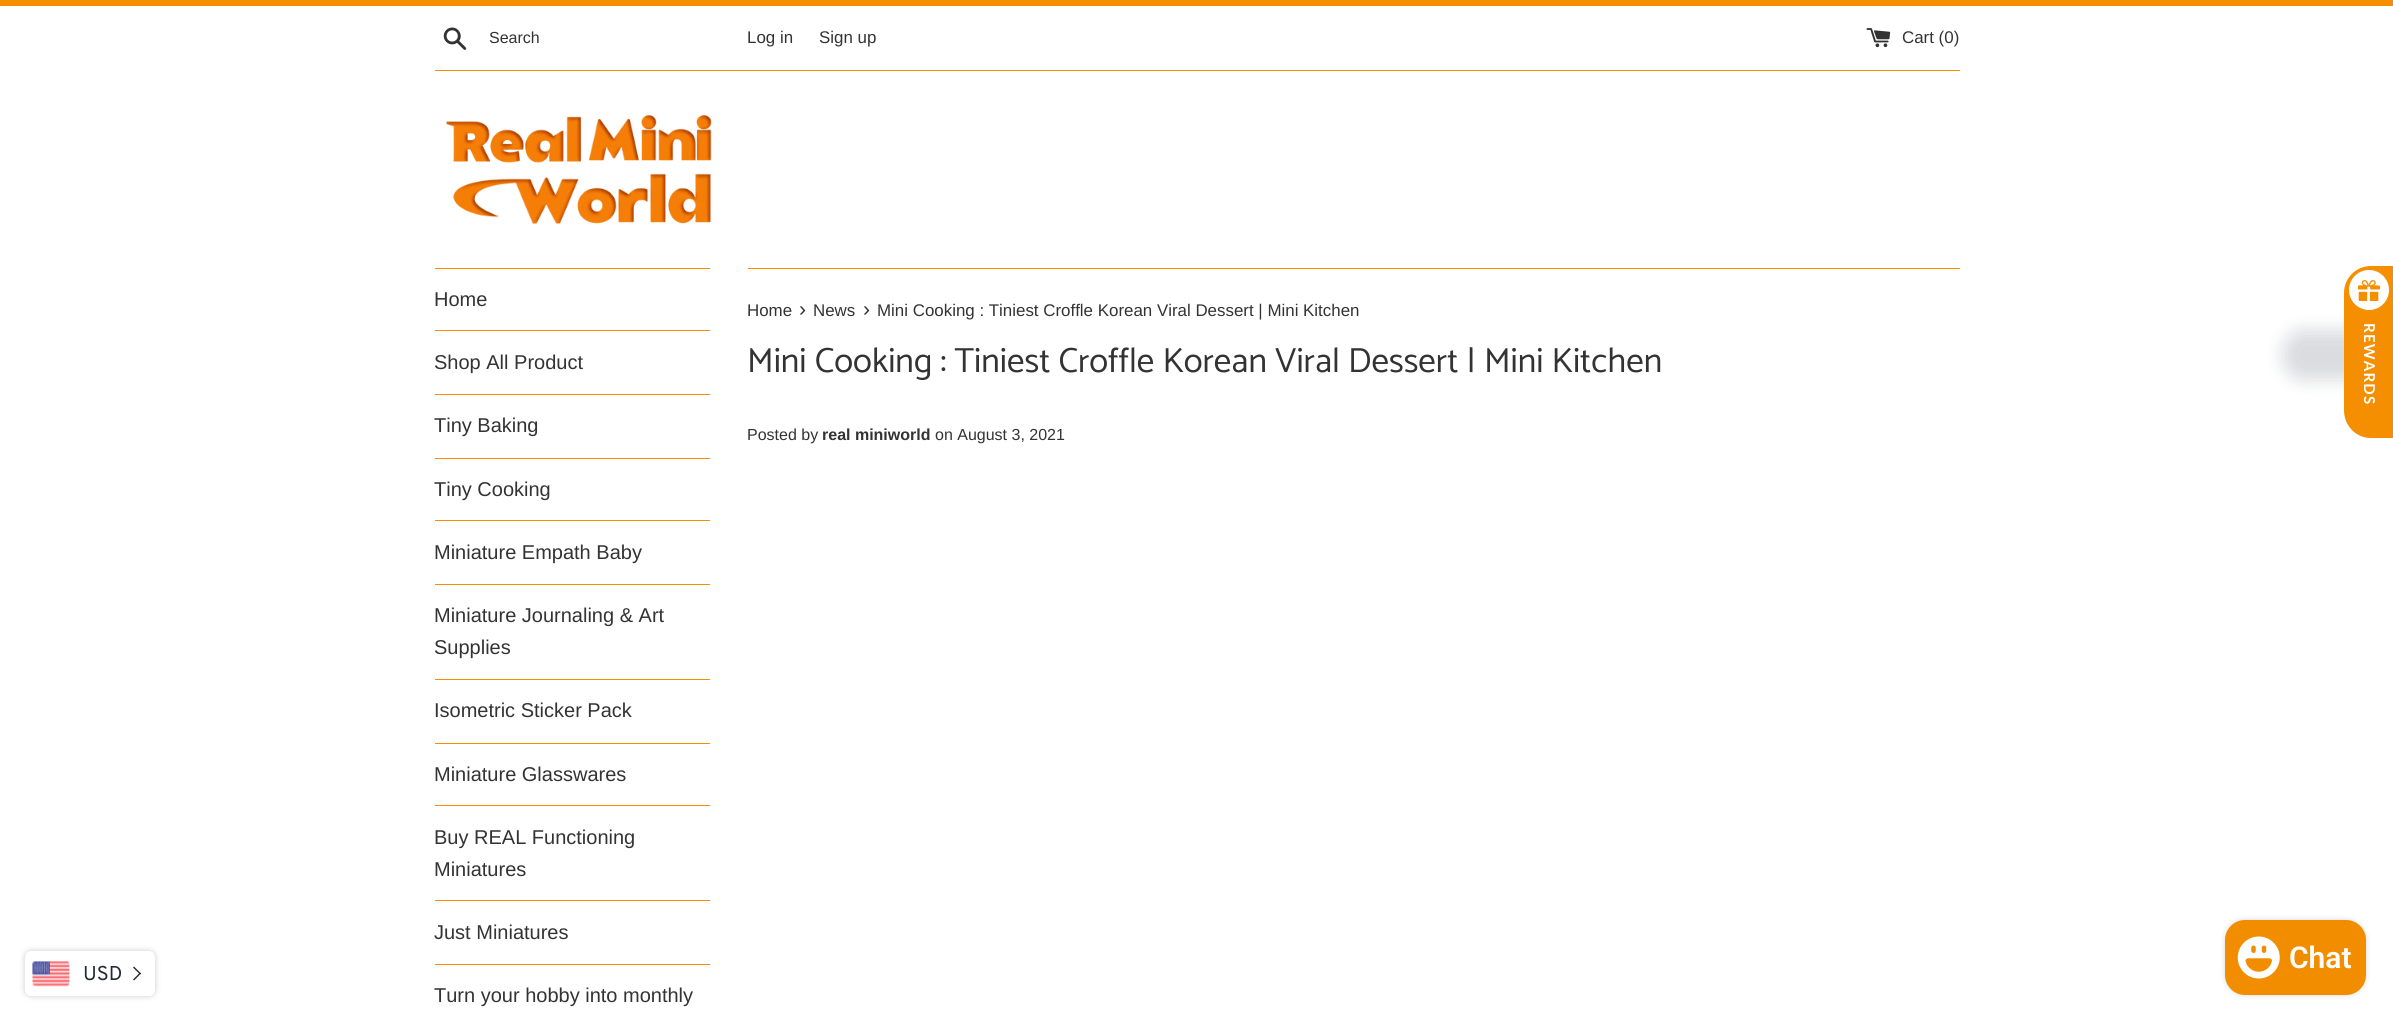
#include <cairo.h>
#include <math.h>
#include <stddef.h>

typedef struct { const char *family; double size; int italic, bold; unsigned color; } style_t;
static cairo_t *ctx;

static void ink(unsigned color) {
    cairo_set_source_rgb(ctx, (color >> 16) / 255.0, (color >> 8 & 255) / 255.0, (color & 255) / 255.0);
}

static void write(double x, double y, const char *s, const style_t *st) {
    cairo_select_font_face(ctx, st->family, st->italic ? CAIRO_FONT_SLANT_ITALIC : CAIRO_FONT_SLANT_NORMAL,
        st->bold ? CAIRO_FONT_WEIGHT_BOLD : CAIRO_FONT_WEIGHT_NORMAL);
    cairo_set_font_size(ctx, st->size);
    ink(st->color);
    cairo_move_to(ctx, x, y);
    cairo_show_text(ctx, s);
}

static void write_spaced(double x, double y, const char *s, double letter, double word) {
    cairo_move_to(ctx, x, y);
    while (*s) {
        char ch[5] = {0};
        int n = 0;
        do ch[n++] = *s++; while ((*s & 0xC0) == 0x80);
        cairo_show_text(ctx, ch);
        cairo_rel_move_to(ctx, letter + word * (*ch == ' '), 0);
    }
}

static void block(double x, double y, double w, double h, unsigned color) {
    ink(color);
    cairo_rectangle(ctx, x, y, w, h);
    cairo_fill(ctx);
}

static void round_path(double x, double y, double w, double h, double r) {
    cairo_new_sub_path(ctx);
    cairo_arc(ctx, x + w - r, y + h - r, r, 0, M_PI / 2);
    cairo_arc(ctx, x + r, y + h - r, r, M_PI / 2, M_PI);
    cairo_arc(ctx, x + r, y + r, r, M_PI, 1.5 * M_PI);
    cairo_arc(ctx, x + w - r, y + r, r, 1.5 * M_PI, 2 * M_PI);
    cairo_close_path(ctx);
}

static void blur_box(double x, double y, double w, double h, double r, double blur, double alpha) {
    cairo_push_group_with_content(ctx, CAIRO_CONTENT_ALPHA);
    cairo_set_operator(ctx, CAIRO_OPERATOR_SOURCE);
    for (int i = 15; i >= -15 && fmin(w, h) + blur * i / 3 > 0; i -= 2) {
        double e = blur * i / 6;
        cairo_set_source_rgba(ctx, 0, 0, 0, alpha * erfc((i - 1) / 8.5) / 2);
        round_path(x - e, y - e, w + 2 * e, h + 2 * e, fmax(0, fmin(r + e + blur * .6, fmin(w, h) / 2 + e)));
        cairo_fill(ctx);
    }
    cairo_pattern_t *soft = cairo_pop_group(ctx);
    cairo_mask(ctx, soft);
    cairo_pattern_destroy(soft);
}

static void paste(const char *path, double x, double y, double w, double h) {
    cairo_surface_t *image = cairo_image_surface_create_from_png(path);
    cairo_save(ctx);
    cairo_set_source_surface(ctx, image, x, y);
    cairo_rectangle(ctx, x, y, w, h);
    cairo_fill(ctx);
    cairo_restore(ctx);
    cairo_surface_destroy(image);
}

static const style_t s1 = {"Liberation Sans", 16, 0, 0, 0x333333};
static const style_t s2 = {"Liberation Sans", 16.9, 0, 0, 0x333333};
static const style_t s3 = {"Liberation Sans", 20, 0, 0, 0x333333};
static const style_t s4 = {"Liberation Sans", 21, 0, 0, 0x333333};
static const style_t s5 = {"Catamaran", 35, 0, 0, 0x333333};
static const style_t s6 = {"Liberation Sans", 16, 0, 1, 0x333333};
static const style_t s7 = {"Roboto SemiBold", 30, 0, 0, 0xffffff};
static const style_t s8 = {"Overpass", 20, 0, 0, 0x212b36};

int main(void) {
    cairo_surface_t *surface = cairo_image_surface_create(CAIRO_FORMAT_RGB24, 2393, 1021);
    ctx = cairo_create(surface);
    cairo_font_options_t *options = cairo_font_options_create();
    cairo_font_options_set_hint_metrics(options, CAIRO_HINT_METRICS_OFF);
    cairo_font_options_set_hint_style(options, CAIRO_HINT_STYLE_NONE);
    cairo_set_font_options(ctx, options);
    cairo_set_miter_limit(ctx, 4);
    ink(0xffffff);
    cairo_paint(ctx);
    block(0, 0, 2393, 6, 0xf58f00);
    paste("pic1.png", 443, 27, 24, 23);
    write(489, 43, "Search", &s1);
    write(747, 43, "Log in", &s2);
    write(819, 43, "Sign up", &s2);
    paste("pic2.png", 1866, 28, 25, 20);
    write(1902, 43, "Cart (0)", &s2);
    block(435, 70, 1525, 1, 0xf58f00);
    paste("pic3.png", 446, 115, 266, 109);
    block(435, 268, 275, 1, 0xf58f00);
    block(435, 330, 275, 1, 0xf58f00);
    write(434, 306, "Home", &s3);
    block(435, 394, 275, 1, 0xf58f00);
    write(434, 369, "Shop All Product", &s3);
    block(435, 458, 275, 1, 0xf58f00);
    write(434, 432, "Tiny Baking", &s3);
    block(435, 520, 275, 1, 0xf58f00);
    write(434, 496, "Tiny Cooking", &s3);
    block(435, 584, 275, 1, 0xf58f00);
    write(434, 559, "Miniature Empath Baby", &s3);
    block(435, 679, 275, 1, 0xf58f00);
    write(434, 622, "Miniature Journaling & Art", &s3);
    write(434, 654, "Supplies", &s3);
    block(435, 743, 275, 1, 0xf58f00);
    write(434, 717, "Isometric Sticker Pack", &s3);
    block(435, 805, 275, 1, 0xf58f00);
    write(434, 781, "Miniature Glasswares", &s3);
    block(435, 900, 275, 1, 0xf58f00);
    write(434, 844, "Buy REAL Functioning", &s3);
    write(434, 876, "Miniatures", &s3);
    block(435, 964, 275, 1, 0xf58f00);
    write(434, 939, "Just Miniatures", &s3);
    write(434, 1002, "Turn your hobby into monthly", &s3);
    block(748, 268, 1212, 1, 0xf58f00);
    write(747, 316, "Home", &s2);
    write(799, 316, "›", &s4);
    write(813, 316, "News", &s2);
    write(863, 316, "›", &s4);
    write(877, 316, "Mini Cooking : Tiniest Croffle Korean Viral Dessert | Mini Kitchen", &s2);
    write(747, 372, "Mini Cooking : Tiniest Croffle Korean Viral Dessert | Mini Kitchen", &s5);
    write(747, 440, "Posted by", &s1);
    write(822, 440, "real miniworld", &s6);
    write(935, 440, "on August 3, 2021", &s1);
    ink(0x112233);
    blur_box(2283, 330, 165, 50, 28, 9, 0.16);
    ink(0xf58f00);
    cairo_new_path(ctx);
    cairo_move_to(ctx, 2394, 266);
    cairo_line_to(ctx, 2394, 438);
    cairo_line_to(ctx, 2371, 438);
    cairo_curve_to(ctx, 2356, 438, 2344, 426, 2344, 410);
    cairo_line_to(ctx, 2344, 293);
    cairo_curve_to(ctx, 2344, 278, 2356, 266, 2371, 266);
    cairo_close_path(ctx);
    cairo_fill(ctx);
    ink(0xffffff);
    cairo_arc(ctx, 2369, 290, 20, 0, 2 * M_PI);
    cairo_fill(ctx);
    paste("pic4.png", 2358, 280, 22, 21);
    cairo_select_font_face(ctx, "Lato", CAIRO_FONT_SLANT_NORMAL, CAIRO_FONT_WEIGHT_BOLD);
    cairo_set_font_size(ctx, 15);
    cairo_save(ctx);
    cairo_translate(ctx, 2364, 323);
    cairo_rotate(ctx, 90 * M_PI / 180);
    write_spaced(0, 0, "REWARDS", 1.25, 0);
    cairo_restore(ctx);
    ink(0x000000);
    blur_box(2225, 920, 141, 75, 20, 3, 0.15);
    ink(0xf28d00);
    round_path(2225, 920, 141, 75, 20);
    cairo_fill(ctx);
    paste("pic5.png", 2237, 936, 43, 43);
    write(2289, 968, "Chat", &s7);
    ink(0x212b36);
    blur_box(25, 951, 130, 45, 6, 3, 0.25);
    ink(0xffffff);
    round_path(25, 951, 130, 45, 6);
    cairo_fill(ctx);
    paste("pic6.png", 32, 961, 38, 26);
    write(83, 980, "USD", &s8);
    cairo_new_path(ctx);
    cairo_move_to(ctx, 133, 967.5);
    cairo_line_to(ctx, 134, 966.5);
    cairo_line_to(ctx, 141, 973.5);
    cairo_line_to(ctx, 140, 974.5);
    cairo_close_path(ctx);
    cairo_fill(ctx);
    cairo_new_path(ctx);
    cairo_move_to(ctx, 133, 979.5);
    cairo_line_to(ctx, 140, 972.5);
    cairo_line_to(ctx, 141, 973.5);
    cairo_line_to(ctx, 134, 980.5);
    cairo_close_path(ctx);
    cairo_fill(ctx);
    cairo_surface_write_to_png(surface, "screenshot.png");
    cairo_font_options_destroy(options);
    cairo_destroy(ctx);
    cairo_surface_destroy(surface);
    return 0;
}
